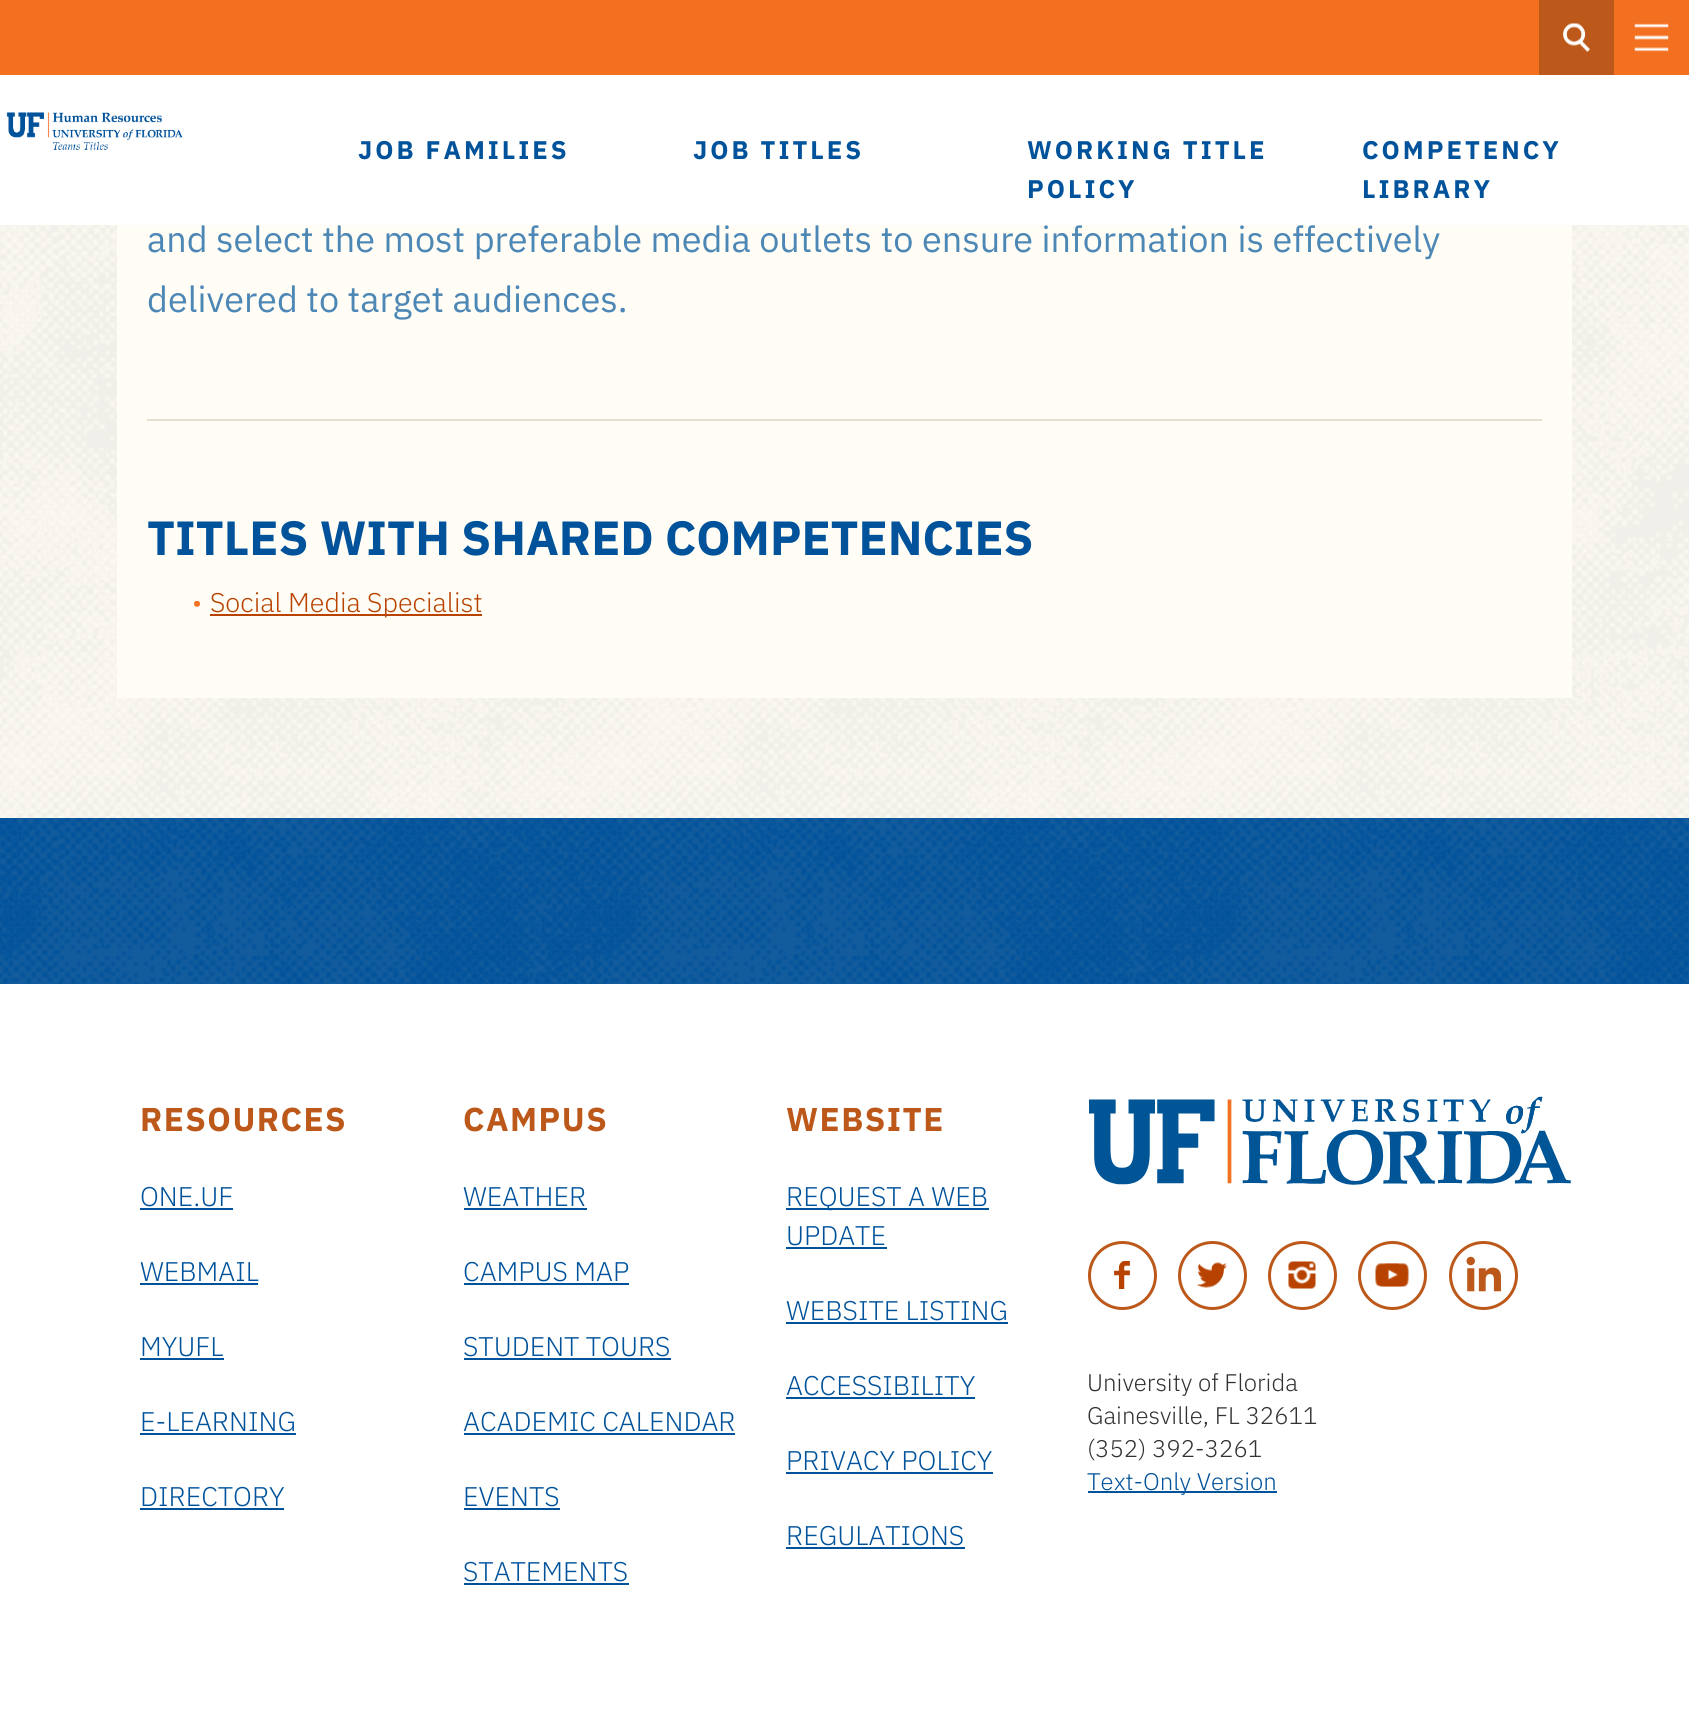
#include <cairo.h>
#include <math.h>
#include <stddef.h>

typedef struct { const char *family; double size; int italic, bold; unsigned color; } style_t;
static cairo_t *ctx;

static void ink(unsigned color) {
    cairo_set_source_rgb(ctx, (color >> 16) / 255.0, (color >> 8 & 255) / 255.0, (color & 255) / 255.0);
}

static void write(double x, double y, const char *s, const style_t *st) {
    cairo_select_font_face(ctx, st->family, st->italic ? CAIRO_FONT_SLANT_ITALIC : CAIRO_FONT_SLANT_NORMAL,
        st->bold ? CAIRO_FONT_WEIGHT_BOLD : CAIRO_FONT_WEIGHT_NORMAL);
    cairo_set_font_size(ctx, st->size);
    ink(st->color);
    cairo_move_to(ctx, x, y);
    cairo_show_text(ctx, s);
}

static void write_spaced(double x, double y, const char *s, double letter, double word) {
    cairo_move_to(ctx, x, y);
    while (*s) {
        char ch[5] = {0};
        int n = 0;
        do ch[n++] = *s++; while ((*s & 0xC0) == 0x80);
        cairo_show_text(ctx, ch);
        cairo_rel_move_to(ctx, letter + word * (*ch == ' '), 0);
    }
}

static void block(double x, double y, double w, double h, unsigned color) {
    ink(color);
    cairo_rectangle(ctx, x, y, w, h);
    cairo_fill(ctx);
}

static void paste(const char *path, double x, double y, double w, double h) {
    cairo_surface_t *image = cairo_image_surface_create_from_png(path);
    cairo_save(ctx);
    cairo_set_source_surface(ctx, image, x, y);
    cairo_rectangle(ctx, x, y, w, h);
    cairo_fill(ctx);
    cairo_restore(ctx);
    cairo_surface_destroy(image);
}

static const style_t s1 = {"IBM Plex Sans", 36, 0, 0, 0x4c87b5};
static const style_t s2 = {"IBM Plex Sans", 48, 0, 1, 0x00529b};
static const style_t s3 = {"IBM Plex Sans Light", 27, 0, 0, 0xf37021};
static const style_t s4 = {"IBM Plex Sans Light", 27, 0, 0, 0xb84300};
static const style_t s5 = {"IBM Plex Sans Light", 27, 0, 0, 0x00529b};
static const style_t s6 = {"IBM Plex Sans Light", 24, 0, 0, 0x333132};
static const style_t s7 = {"IBM Plex Sans Light", 24, 0, 0, 0x00529b};

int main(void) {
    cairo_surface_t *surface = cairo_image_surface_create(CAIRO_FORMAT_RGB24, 1689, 1722);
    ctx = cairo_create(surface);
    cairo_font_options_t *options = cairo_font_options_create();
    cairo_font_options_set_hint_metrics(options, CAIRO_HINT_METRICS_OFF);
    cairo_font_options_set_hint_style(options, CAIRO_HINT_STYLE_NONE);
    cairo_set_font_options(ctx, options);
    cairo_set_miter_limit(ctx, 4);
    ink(0xfaf8f1);
    cairo_paint(ctx);
    paste("pic1.png", 0, 225, 1689, 593);
    block(0, 0, 1539, 75, 0xf37021);
    block(1539, 0, 75, 75, 0xbc581a);
    paste("pic2.png", 1563, 23, 27, 29);
    block(1614, 0, 75, 75, 0xf37021);
    paste("pic3.png", 1634, 23, 35, 29);
    block(0, 75, 1689, 150, 0xffffff);
    paste("pic4.png", 6, 112, 177, 38);
    cairo_select_font_face(ctx, "IBM Plex Sans", CAIRO_FONT_SLANT_NORMAL, CAIRO_FONT_WEIGHT_BOLD);
    cairo_set_font_size(ctx, 25.5);
    ink(0x00529b);
    write_spaced(358, 159, "JOB FAMILIES", 3, 0);
    write_spaced(693, 159, "JOB TITLES", 3, 0);
    write_spaced(1027, 159, "WORKING TITLE", 3, 0);
    write_spaced(1027, 198, "POLICY", 3, 0);
    write_spaced(1362, 159, "COMPETENCY", 3, 0);
    write_spaced(1362, 198, "LIBRARY", 3, 0);
    block(117, 225, 1455, 473, 0xfffdf5);
    write(147, 252, "and select the most preferable media outlets to ensure information is effectively", &s1);
    write(147, 312, "delivered to target audiences.", &s1);
    block(147, 419, 1395, 2, 0xe5dfcf);
    write(147, 555, "TITLES WITH SHARED COMPETENCIES", &s2);
    write(192, 612, "•", &s3);
    block(210, 614, 272, 2, 0xb84300);
    write(210, 612, "Social Media Specialist", &s4);
    block(0, 818, 1689, 166, 0x00529b);
    paste("pic5.png", 0, 818, 1689, 166);
    block(0, 984, 1689, 738, 0xffffff);
    cairo_select_font_face(ctx, "IBM Plex Sans", CAIRO_FONT_SLANT_NORMAL, CAIRO_FONT_WEIGHT_BOLD);
    cairo_set_font_size(ctx, 33);
    ink(0xbc581a);
    write_spaced(140, 1131, "RESOURCES", 1.5, 0);
    write(140, 1206, "ONE.UF", &s5);
    block(140, 1208, 93, 2, 0x00529b);
    write(140, 1281, "WEBMAIL", &s5);
    block(140, 1283, 118, 2, 0x00529b);
    write(140, 1356, "MYUFL", &s5);
    block(140, 1358, 84, 2, 0x00529b);
    write(140, 1431, "E-LEARNING", &s5);
    block(140, 1433, 156, 2, 0x00529b);
    write(140, 1506, "DIRECTORY", &s5);
    block(140, 1508, 144, 2, 0x00529b);
    cairo_select_font_face(ctx, "IBM Plex Sans", CAIRO_FONT_SLANT_NORMAL, CAIRO_FONT_WEIGHT_BOLD);
    cairo_set_font_size(ctx, 33);
    ink(0xbc581a);
    write_spaced(463, 1131, "CAMPUS", 1.5, 0);
    write(463, 1206, "WEATHER", &s5);
    block(464, 1208, 123, 2, 0x00529b);
    write(463, 1281, "CAMPUS MAP", &s5);
    block(464, 1283, 165, 2, 0x00529b);
    write(463, 1356, "STUDENT TOURS", &s5);
    block(464, 1358, 207, 2, 0x00529b);
    write(463, 1431, "ACADEMIC CALENDAR", &s5);
    block(464, 1433, 271, 2, 0x00529b);
    write(463, 1506, "EVENTS", &s5);
    block(464, 1508, 96, 2, 0x00529b);
    write(463, 1581, "STATEMENTS", &s5);
    block(464, 1583, 165, 2, 0x00529b);
    cairo_select_font_face(ctx, "IBM Plex Sans", CAIRO_FONT_SLANT_NORMAL, CAIRO_FONT_WEIGHT_BOLD);
    cairo_set_font_size(ctx, 33);
    ink(0xbc581a);
    write_spaced(786, 1131, "WEBSITE", 1.5, 0);
    block(786, 1208, 203, 2, 0x00529b);
    write(786, 1206, "REQUEST A WEB", &s5);
    write(786, 1245, "UPDATE", &s5);
    block(786, 1247, 101, 2, 0x00529b);
    write(786, 1320, "WEBSITE LISTING", &s5);
    block(786, 1322, 222, 2, 0x00529b);
    write(786, 1395, "ACCESSIBILITY", &s5);
    block(786, 1397, 189, 2, 0x00529b);
    write(786, 1470, "PRIVACY POLICY", &s5);
    block(786, 1472, 207, 2, 0x00529b);
    write(786, 1545, "REGULATIONS", &s5);
    block(786, 1547, 179, 2, 0x00529b);
    paste("pic6.png", 1089, 1096, 482, 89);
    cairo_arc(ctx, 1122.5, 1275.5, 33, 0, 2 * M_PI);
    ink(0xbc581a);
    cairo_set_line_width(ctx, 3);
    cairo_stroke(ctx);
    paste("pic7.png", 1114, 1261, 16, 28);
    cairo_arc(ctx, 1212.5, 1275.5, 33, 0, 2 * M_PI);
    cairo_stroke(ctx);
    paste("pic8.png", 1197, 1262, 30, 26);
    cairo_arc(ctx, 1302.5, 1275.5, 33, 0, 2 * M_PI);
    cairo_stroke(ctx);
    paste("pic9.png", 1288, 1261, 28, 28);
    cairo_arc(ctx, 1392.5, 1275.5, 33, 0, 2 * M_PI);
    cairo_stroke(ctx);
    paste("pic10.png", 1375, 1263, 34, 24);
    cairo_arc(ctx, 1483.5, 1275.5, 33, 0, 2 * M_PI);
    cairo_stroke(ctx);
    paste("pic11.png", 1466, 1256, 35, 36);
    write(1087, 1391, "University of Florida", &s6);
    write(1087, 1424, "Gainesville, FL 32611", &s6);
    write(1087, 1457, "(352) 392-3261", &s6);
    block(1088, 1491, 189, 2, 0x00529b);
    write(1087, 1490, "Text-Only Version", &s7);
    cairo_surface_write_to_png(surface, "screenshot.png");
    cairo_font_options_destroy(options);
    cairo_destroy(ctx);
    cairo_surface_destroy(surface);
    return 0;
}
